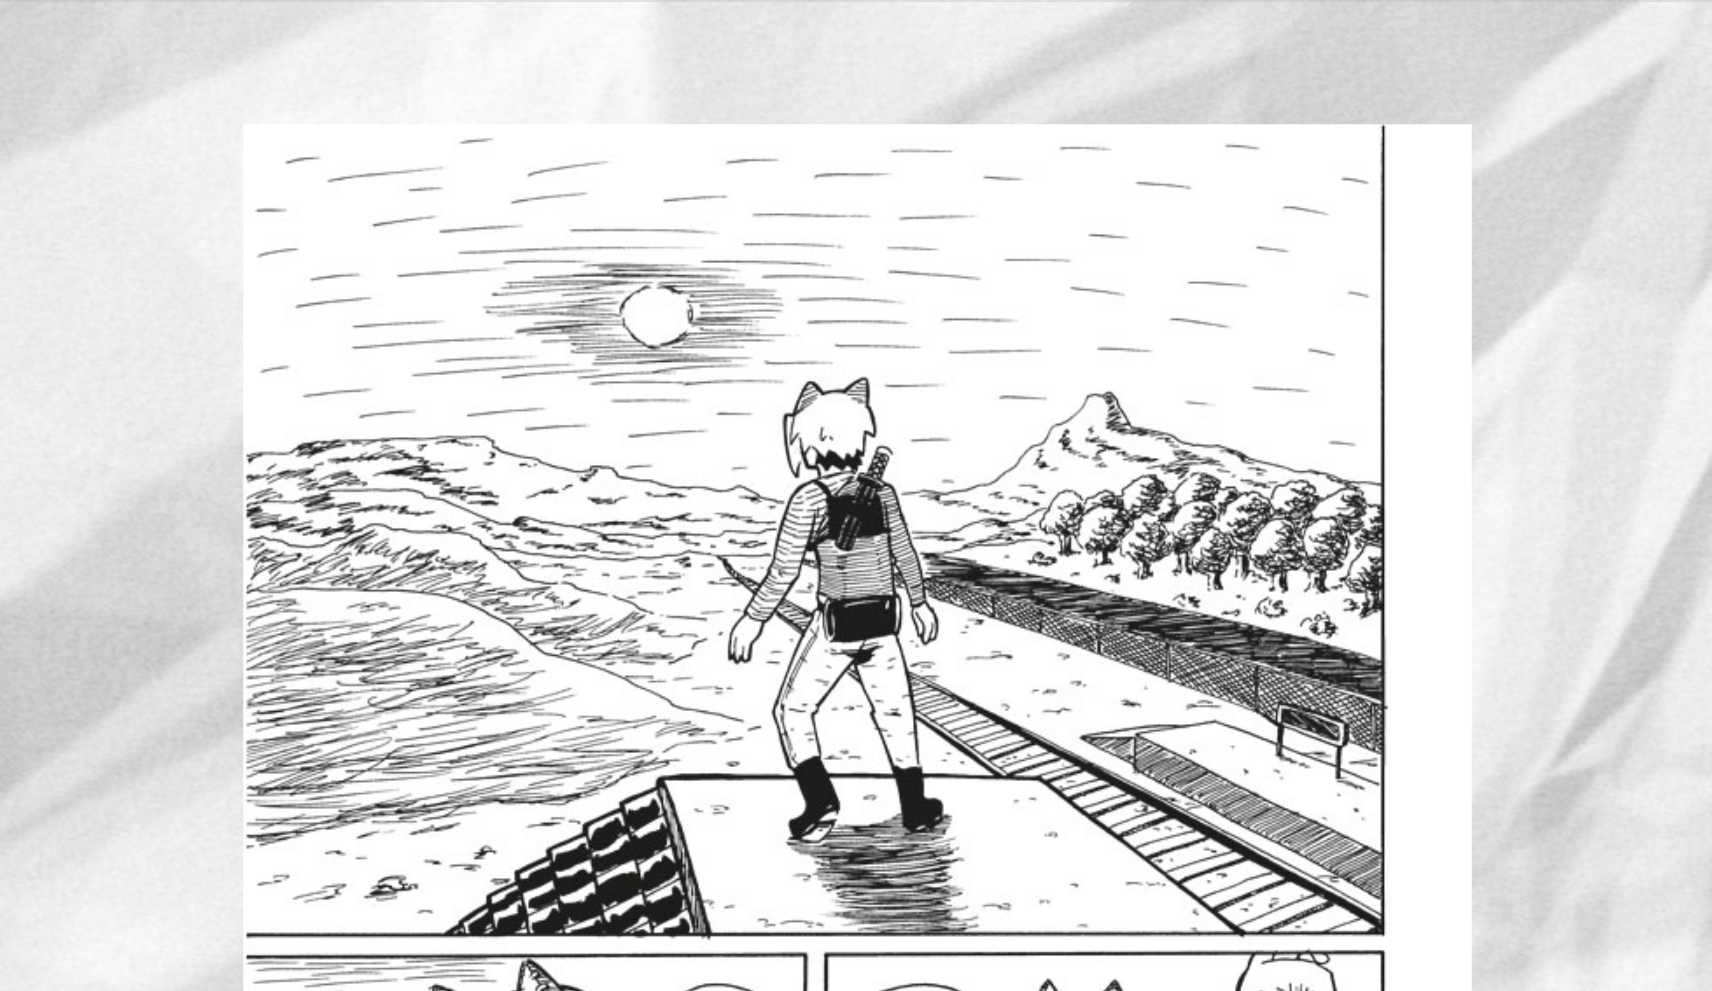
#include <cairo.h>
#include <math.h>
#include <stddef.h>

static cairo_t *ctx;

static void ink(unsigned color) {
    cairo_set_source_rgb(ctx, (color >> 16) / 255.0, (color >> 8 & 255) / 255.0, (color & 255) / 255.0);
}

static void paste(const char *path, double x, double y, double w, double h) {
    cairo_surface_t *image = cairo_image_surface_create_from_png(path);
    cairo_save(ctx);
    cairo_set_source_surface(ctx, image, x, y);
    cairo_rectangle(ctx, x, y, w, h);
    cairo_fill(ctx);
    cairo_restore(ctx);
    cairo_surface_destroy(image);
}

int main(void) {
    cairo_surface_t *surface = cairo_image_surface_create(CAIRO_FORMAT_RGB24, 1712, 991);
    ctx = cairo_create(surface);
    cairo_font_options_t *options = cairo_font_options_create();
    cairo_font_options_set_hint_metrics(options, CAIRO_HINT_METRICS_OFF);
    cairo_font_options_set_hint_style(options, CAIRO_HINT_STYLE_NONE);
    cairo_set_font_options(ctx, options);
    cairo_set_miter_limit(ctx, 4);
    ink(0xffffff);
    cairo_paint(ctx);
    paste("pic1.png", 0, 0, 1712, 991);
    cairo_set_source_rgba(ctx, 0.678, 0.69, 0.714, 0.3);
    cairo_rectangle(ctx, 0, 0, 1712, 2);
    cairo_fill(ctx);
    paste("pic2.png", 243, 124, 1229, 867);
    cairo_surface_write_to_png(surface, "screenshot.png");
    cairo_font_options_destroy(options);
    cairo_destroy(ctx);
    cairo_surface_destroy(surface);
    return 0;
}
